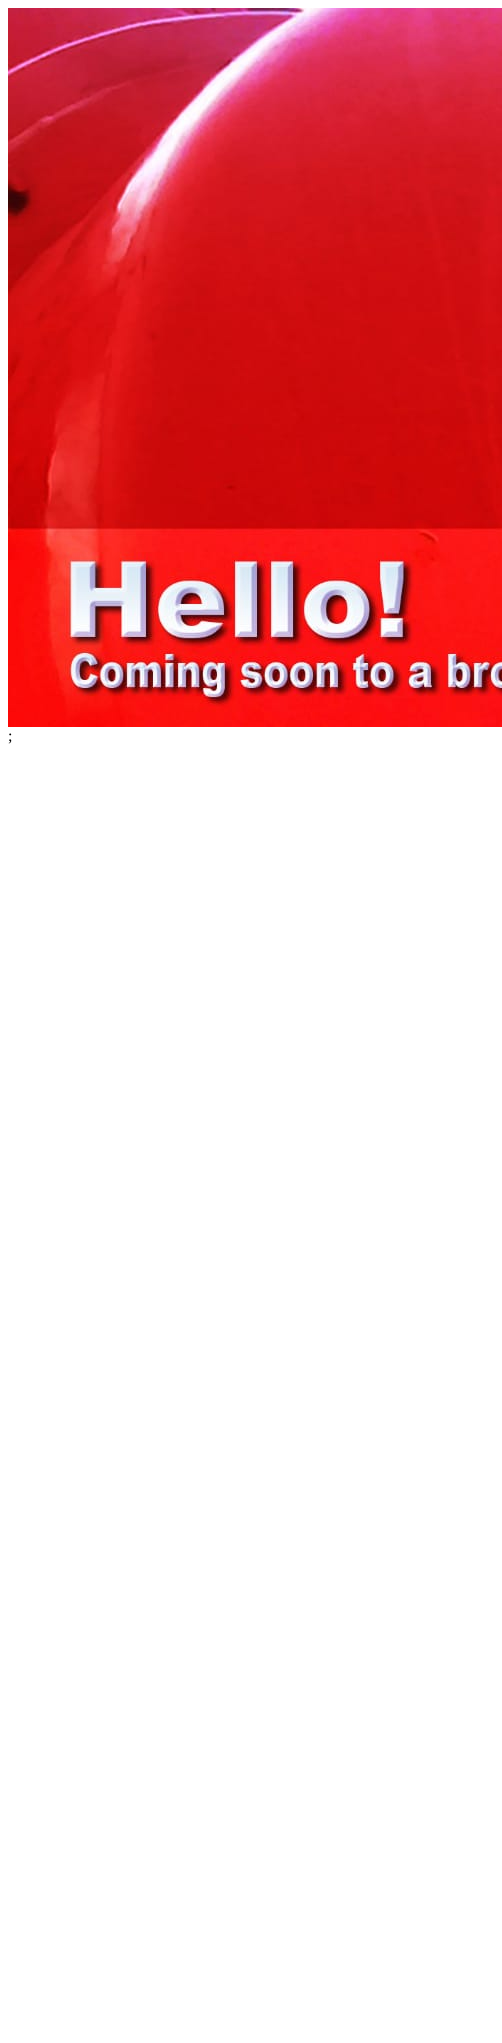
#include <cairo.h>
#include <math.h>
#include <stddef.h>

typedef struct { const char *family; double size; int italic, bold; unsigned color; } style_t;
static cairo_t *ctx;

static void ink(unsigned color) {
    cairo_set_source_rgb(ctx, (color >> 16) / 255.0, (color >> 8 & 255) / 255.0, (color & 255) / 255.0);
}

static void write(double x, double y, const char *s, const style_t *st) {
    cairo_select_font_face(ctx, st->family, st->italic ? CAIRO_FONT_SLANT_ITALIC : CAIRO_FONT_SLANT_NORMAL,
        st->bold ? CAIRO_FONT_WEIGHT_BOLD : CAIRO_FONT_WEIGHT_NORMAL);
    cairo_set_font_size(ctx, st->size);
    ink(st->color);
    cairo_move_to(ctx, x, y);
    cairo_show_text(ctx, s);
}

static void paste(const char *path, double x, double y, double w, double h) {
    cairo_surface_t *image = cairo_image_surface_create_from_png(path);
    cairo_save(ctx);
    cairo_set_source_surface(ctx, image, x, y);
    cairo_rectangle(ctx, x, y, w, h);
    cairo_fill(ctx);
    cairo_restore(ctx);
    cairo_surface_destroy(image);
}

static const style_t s1 = {"Liberation Serif", 16, 0, 0, 0x000000};

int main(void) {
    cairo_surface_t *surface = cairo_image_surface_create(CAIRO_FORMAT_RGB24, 502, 2043);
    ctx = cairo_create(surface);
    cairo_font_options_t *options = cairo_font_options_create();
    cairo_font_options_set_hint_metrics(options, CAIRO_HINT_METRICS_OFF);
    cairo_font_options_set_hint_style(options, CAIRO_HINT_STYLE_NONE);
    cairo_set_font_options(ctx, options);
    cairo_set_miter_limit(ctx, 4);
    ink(0xffffff);
    cairo_paint(ctx);
    paste("pic1.png", 8, 8, 494, 719);
    write(8, 741, ";", &s1);
    cairo_surface_write_to_png(surface, "screenshot.png");
    cairo_font_options_destroy(options);
    cairo_destroy(ctx);
    cairo_surface_destroy(surface);
    return 0;
}
